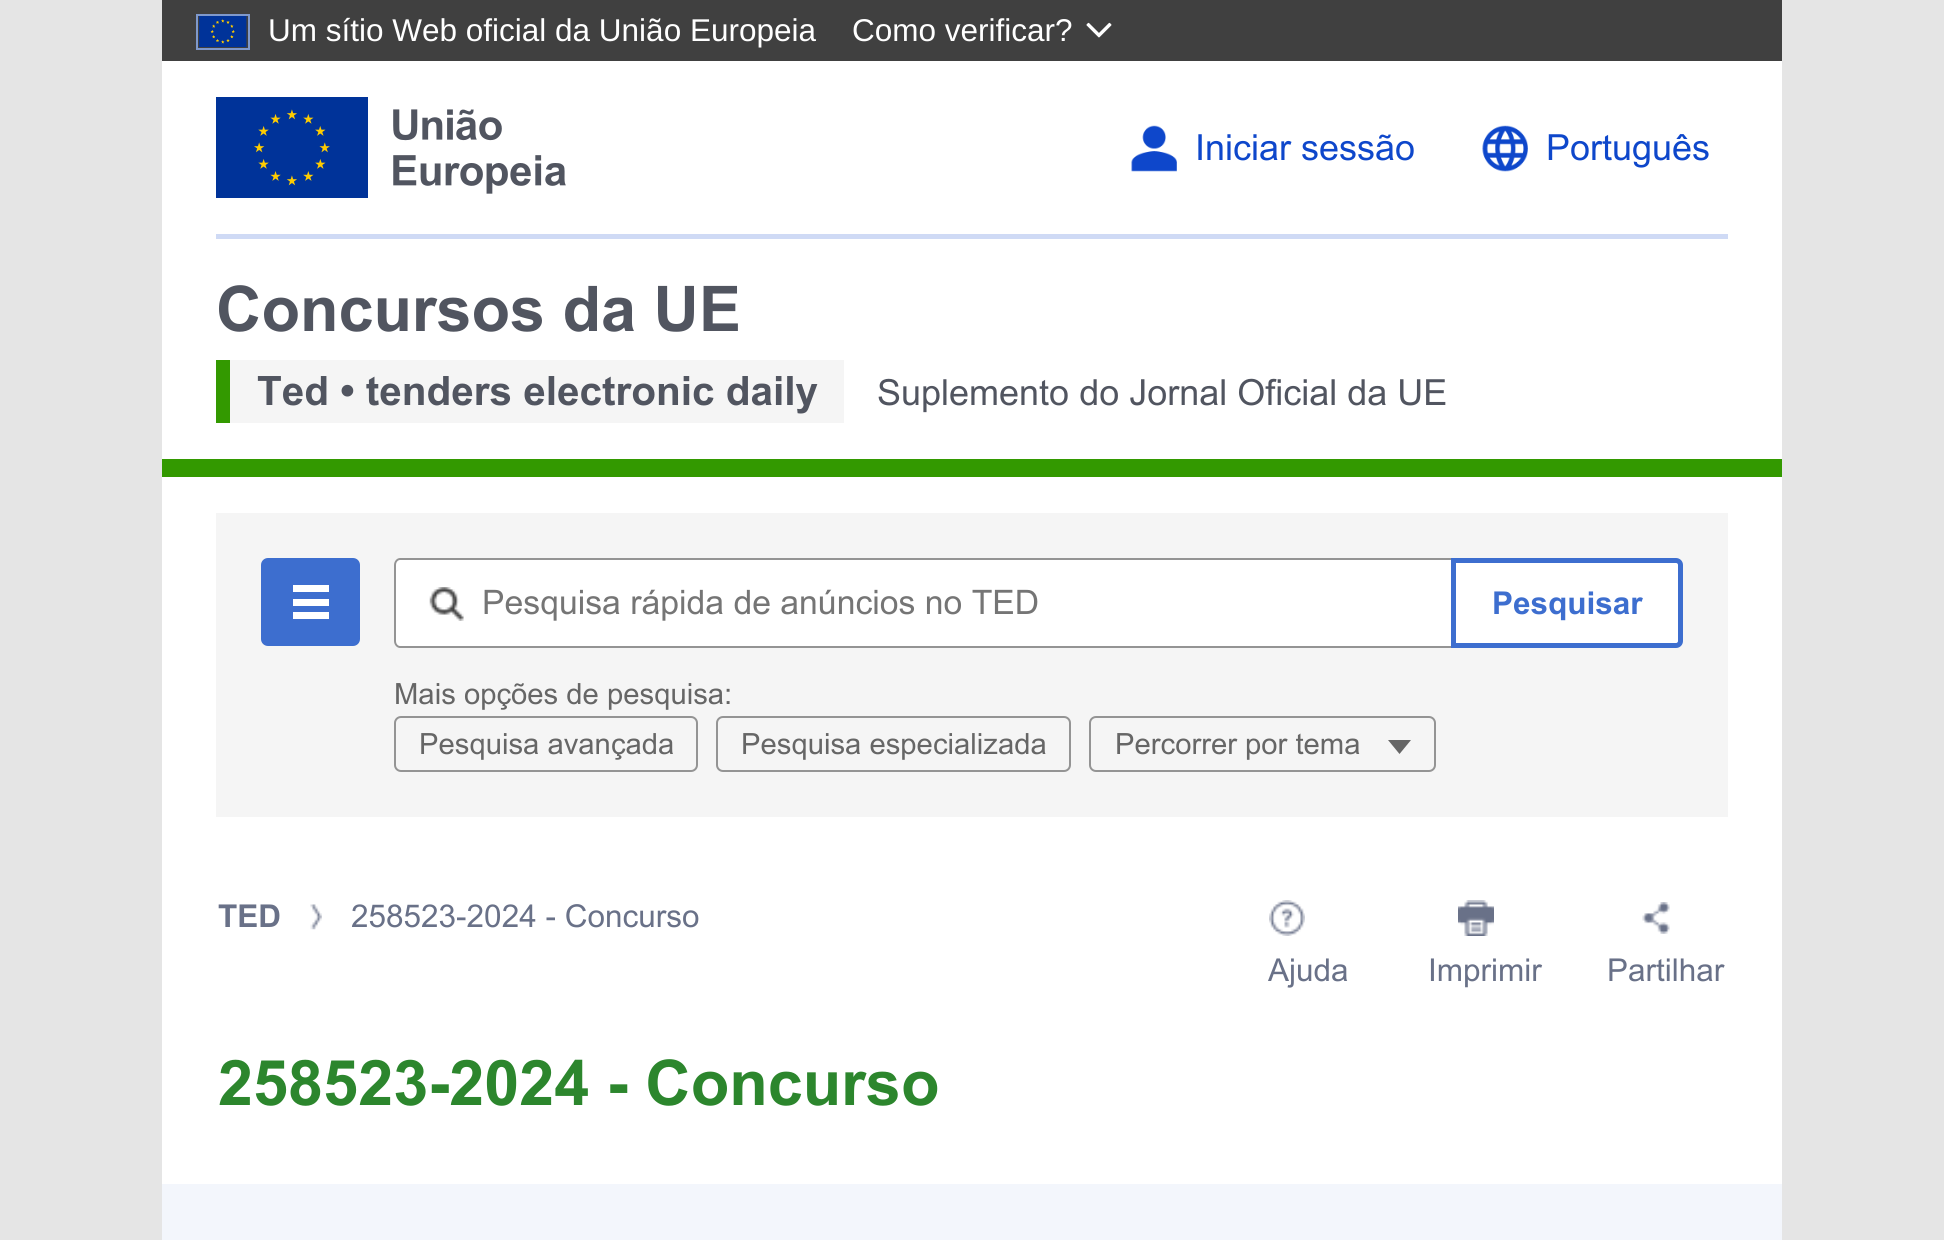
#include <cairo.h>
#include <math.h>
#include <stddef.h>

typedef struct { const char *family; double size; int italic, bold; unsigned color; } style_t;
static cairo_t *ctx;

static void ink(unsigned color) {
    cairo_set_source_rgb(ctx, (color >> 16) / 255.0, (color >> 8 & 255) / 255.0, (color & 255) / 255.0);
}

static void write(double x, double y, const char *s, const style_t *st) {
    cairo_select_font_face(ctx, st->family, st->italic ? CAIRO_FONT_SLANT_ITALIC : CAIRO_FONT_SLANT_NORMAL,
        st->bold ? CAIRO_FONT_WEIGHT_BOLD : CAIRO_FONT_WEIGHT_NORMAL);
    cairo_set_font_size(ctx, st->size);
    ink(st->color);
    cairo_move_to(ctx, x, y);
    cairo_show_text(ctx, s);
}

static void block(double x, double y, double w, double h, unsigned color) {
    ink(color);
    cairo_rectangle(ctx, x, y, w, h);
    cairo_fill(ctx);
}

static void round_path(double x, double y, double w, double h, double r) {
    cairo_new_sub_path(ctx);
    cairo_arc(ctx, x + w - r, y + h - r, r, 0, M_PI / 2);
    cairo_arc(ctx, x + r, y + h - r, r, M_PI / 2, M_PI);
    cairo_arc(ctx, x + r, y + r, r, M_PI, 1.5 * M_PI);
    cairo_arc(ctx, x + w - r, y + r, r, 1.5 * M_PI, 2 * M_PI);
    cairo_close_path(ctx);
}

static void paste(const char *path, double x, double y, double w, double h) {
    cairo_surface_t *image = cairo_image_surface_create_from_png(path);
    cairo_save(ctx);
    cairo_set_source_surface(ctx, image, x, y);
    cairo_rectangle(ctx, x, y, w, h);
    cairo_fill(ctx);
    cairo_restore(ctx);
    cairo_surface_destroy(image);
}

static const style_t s1 = {"Liberation Sans", 31.5, 0, 0, 0xffffff};
static const style_t s2 = {"Arial", 36, 0, 0, 0x0e47cb};
static const style_t s3 = {"Arial", 63, 0, 1, 0x515560};
static const style_t s4 = {"Arial", 40.5, 0, 1, 0x515560};
static const style_t s5 = {"Arial", 36, 0, 0, 0x515560};
static const style_t s6 = {"Arial", 33.75, 0, 0, 0x757575};
static const style_t s7 = {"Arial", 31.5, 0, 1, 0x3d6ecf};
static const style_t s8 = {"Arial", 29.25, 0, 0, 0x666666};
static const style_t s9 = {"Arial", 31.5, 0, 1, 0x697188};
static const style_t s10 = {"Arial", 31.5, 0, 0, 0x697188};
static const style_t s11 = {"Arial", 63, 0, 1, 0x2c862d};

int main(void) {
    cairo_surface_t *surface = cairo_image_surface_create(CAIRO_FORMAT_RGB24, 1944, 1240);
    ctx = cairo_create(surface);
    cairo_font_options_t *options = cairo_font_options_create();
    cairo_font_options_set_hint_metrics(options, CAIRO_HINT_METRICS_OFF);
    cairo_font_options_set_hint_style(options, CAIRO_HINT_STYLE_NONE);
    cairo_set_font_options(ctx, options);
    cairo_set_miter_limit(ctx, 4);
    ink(0xe5e5e5);
    cairo_paint(ctx);
    block(162, 0, 1620, 61, 0x404040);
    cairo_rectangle(ctx, 197, 15, 52, 34);
    ink(0x7f99cc);
    cairo_stroke(ctx);
    paste("pic1.png", 199, 16, 48, 31);
    write(268, 41, "Um sítio Web oficial da União Europeia", &s1);
    write(852, 41, "Como verificar?", &s1);
    paste("pic2.png", 1086, 22, 26, 16);
    block(162, 61, 1620, 398, 0xffffff);
    block(216, 234, 1512, 5, 0xcfdaf5);
    paste("pic3.png", 216, 97, 350, 101);
    paste("pic4.png", 1131, 125, 46, 47);
    write(1195, 160, "Iniciar sessão", &s2);
    paste("pic5.png", 1482, 125, 46, 47);
    write(1546, 160, "Português", &s2);
    write(216, 331, "Concursos da UE", &s3);
    block(230, 360, 614, 63, 0xf5f5f5);
    block(216, 360, 14, 63, 0x339900);
    write(257, 405, "Ted • tenders electronic daily", &s4);
    write(877, 405, "Suplemento do Jornal Oficial da UE", &s5);
    block(162, 459, 1620, 18, 0x339900);
    block(162, 477, 1620, 707, 0xffffff);
    block(216, 513, 1512, 304, 0xf5f5f5);
    ink(0x3d6ecf);
    round_path(261, 558, 99, 88, 7);
    cairo_fill(ctx);
    block(293, 585, 36, 7, 0xffffff);
    block(293, 599, 36, 7, 0xffffff);
    block(293, 612, 36, 7, 0xffffff);
    cairo_new_path(ctx);
    cairo_move_to(ctx, 401, 558);
    cairo_line_to(ctx, 1451, 558);
    cairo_line_to(ctx, 1451, 648);
    cairo_line_to(ctx, 401, 648);
    cairo_curve_to(ctx, 397, 648, 394, 645, 394, 641);
    cairo_line_to(ctx, 394, 565);
    cairo_curve_to(ctx, 394, 561, 397, 558, 401, 558);
    cairo_close_path(ctx);
    cairo_fill(ctx);
    ink(0x949494);
    cairo_set_fill_rule(ctx, CAIRO_FILL_RULE_EVEN_ODD);
    cairo_new_path(ctx);
    cairo_move_to(ctx, 400, 558);
    cairo_line_to(ctx, 1451, 558);
    cairo_line_to(ctx, 1451, 648);
    cairo_line_to(ctx, 400, 648);
    cairo_curve_to(ctx, 397, 648, 394, 645, 394, 641);
    cairo_line_to(ctx, 394, 565);
    cairo_curve_to(ctx, 394, 561, 397, 558, 400, 558);
    cairo_close_path(ctx);
    cairo_move_to(ctx, 400, 560);
    cairo_line_to(ctx, 1451, 560);
    cairo_line_to(ctx, 1451, 646);
    cairo_line_to(ctx, 400, 646);
    cairo_curve_to(ctx, 398, 646, 396, 644, 396, 641);
    cairo_line_to(ctx, 396, 565);
    cairo_curve_to(ctx, 396, 562, 398, 560, 400, 560);
    cairo_close_path(ctx);
    cairo_fill(ctx);
    paste("pic6.png", 429, 587, 35, 34);
    write(482, 614, "Pesquisa rápida de anúncios no TED", &s6);
    ink(0xffffff);
    cairo_new_path(ctx);
    cairo_move_to(ctx, 1453.5, 560.5);
    cairo_line_to(ctx, 1676, 560.5);
    cairo_curve_to(ctx, 1678.5, 560.5, 1680.5, 562.5, 1680.5, 565);
    cairo_line_to(ctx, 1680.5, 641);
    cairo_curve_to(ctx, 1680.5, 643.5, 1678.5, 645.5, 1676, 645.5);
    cairo_line_to(ctx, 1453.5, 645.5);
    cairo_close_path(ctx);
    cairo_fill_preserve(ctx);
    ink(0x3d6ecf);
    cairo_set_line_width(ctx, 5);
    cairo_stroke(ctx);
    write(1492, 614, "Pesquisar", &s7);
    write(394, 704, "Mais opções de pesquisa:", &s8);
    round_path(395, 717, 302, 54, 6);
    ink(0x949494);
    cairo_set_line_width(ctx, 2);
    cairo_stroke(ctx);
    write(419, 754, "Pesquisa avançada", &s8);
    round_path(717, 717, 353, 54, 6);
    ink(0x949494);
    cairo_stroke(ctx);
    write(741, 754, "Pesquisa especializada", &s8);
    round_path(1090, 717, 345, 54, 6);
    ink(0x949494);
    cairo_stroke(ctx);
    write(1115, 754, "Percorrer por tema", &s8);
    cairo_set_fill_rule(ctx, CAIRO_FILL_RULE_WINDING);
    cairo_new_path(ctx);
    cairo_move_to(ctx, 1388, 740);
    cairo_line_to(ctx, 1411, 740);
    cairo_line_to(ctx, 1399.5, 754);
    cairo_close_path(ctx);
    cairo_fill(ctx);
    write(218, 927, "TED", &s9);
    paste("pic7.png", 310, 904, 12, 26);
    write(351, 927, "258523-2024 - Concurso", &s10);
    paste("pic8.png", 1269, 900, 36, 36);
    write(1268, 981, "Ajuda", &s10);
    paste("pic9.png", 1458, 900, 36, 36);
    write(1428, 981, "Imprimir", &s10);
    paste("pic10.png", 1642, 902, 28, 32);
    write(1607, 981, "Partilhar", &s10);
    write(218, 1105, "258523-2024 - Concurso", &s11);
    block(162, 1184, 1620, 56, 0xf3f6fc);
    cairo_surface_write_to_png(surface, "screenshot.png");
    cairo_font_options_destroy(options);
    cairo_destroy(ctx);
    cairo_surface_destroy(surface);
    return 0;
}
